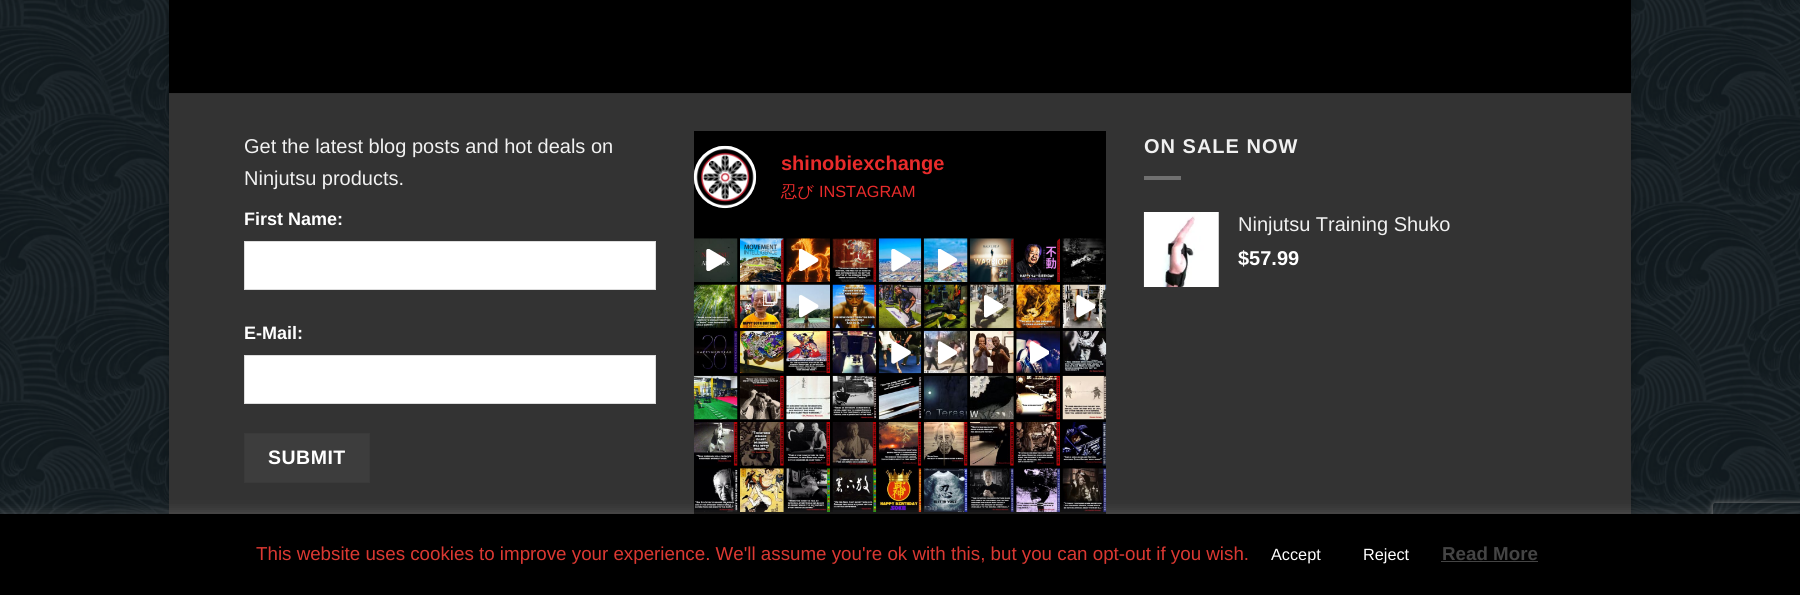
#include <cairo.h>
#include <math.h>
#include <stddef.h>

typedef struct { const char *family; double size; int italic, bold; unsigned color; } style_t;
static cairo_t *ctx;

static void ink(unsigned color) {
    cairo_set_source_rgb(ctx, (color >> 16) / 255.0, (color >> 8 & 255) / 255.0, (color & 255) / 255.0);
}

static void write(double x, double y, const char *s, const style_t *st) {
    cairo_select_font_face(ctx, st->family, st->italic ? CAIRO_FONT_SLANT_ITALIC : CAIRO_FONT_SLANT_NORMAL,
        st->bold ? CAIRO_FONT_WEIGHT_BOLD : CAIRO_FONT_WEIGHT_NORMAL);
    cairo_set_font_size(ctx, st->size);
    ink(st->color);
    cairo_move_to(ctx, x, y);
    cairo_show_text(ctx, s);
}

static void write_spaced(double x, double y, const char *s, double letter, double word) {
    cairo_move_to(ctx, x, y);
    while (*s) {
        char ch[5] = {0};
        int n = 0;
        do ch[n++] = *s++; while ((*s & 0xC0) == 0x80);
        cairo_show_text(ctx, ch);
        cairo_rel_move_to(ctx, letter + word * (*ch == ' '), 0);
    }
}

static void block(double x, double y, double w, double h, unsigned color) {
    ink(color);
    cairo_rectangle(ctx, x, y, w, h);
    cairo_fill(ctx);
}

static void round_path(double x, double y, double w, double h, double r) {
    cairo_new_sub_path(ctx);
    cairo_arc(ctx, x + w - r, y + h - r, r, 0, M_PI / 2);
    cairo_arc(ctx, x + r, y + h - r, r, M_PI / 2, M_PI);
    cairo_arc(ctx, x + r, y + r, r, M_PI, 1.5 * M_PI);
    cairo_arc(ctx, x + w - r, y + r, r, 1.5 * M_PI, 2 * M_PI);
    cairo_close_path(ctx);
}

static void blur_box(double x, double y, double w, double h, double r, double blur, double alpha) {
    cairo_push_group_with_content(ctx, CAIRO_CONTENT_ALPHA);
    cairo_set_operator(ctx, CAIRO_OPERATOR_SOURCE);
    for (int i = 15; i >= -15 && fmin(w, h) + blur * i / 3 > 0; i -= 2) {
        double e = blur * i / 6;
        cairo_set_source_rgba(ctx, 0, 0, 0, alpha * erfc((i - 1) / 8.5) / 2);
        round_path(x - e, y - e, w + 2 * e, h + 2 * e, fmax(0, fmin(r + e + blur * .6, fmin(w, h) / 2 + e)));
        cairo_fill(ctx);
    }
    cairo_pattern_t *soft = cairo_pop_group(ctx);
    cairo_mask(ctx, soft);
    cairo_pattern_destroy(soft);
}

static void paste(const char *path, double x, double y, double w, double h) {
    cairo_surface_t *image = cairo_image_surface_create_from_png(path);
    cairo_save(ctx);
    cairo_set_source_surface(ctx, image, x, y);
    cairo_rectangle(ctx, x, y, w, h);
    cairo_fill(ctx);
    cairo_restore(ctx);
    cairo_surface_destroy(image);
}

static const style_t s1 = {"Liberation Sans", 20, 0, 0, 0xf1f1f1};
static const style_t s2 = {"Liberation Sans", 18, 0, 1, 0xffffff};
static const style_t s3 = {"Liberation Sans", 20, 0, 1, 0xe92b2b};
static const style_t s4 = {"WenQuanYi Zen Hei Medium", 16.25, 0, 0, 0xe92b2b};
static const style_t s5 = {"Liberation Sans", 16.25, 0, 0, 0xe92b2b};
static const style_t s6 = {"Liberation Sans", 20, 0, 1, 0xffffff};
static const style_t s7 = {"Liberation Sans", 18.75, 0, 0, 0xdb3832};
static const style_t s8 = {"Liberation Sans", 16.25, 0, 0, 0xffffff};
static const style_t s9 = {"Liberation Sans", 18.75, 0, 1, 0x444444};

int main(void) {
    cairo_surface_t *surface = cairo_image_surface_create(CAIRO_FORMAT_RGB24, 1800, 595);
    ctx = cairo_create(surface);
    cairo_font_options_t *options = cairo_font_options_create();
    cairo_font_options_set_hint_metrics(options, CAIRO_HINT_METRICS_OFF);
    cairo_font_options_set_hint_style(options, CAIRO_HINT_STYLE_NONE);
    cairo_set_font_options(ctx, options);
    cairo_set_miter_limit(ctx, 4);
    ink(0xffffff);
    cairo_paint(ctx);
    paste("pic1.png", 0, 0, 1800, 514);
    ink(0x000000);
    blur_box(169, -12, 1462, 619, 0, 4, 0.23);
    block(169, 0, 1462, 93, 0x000000);
    block(169, 94, 1462, 420, 0x333333);
    block(169, 93, 1462, 1, 0x303030);
    write(244, 153, "Get the latest blog posts and hot deals on", &s1);
    write(244, 185, "Ninjutsu products.", &s1);
    write(244, 225, "First Name:", &s2);
    cairo_rectangle(ctx, 244.5, 241.5, 411, 48);
    cairo_fill_preserve(ctx);
    ink(0xdddddd);
    cairo_set_line_width(ctx, 1);
    cairo_stroke(ctx);
    write(244, 339, "E-Mail:", &s2);
    cairo_rectangle(ctx, 244.5, 355.5, 411, 48);
    cairo_fill_preserve(ctx);
    ink(0xdddddd);
    cairo_stroke(ctx);
    ink(0x3d3d3d);
    cairo_rectangle(ctx, 244.5, 433.5, 125, 49);
    cairo_fill_preserve(ctx);
    ink(0x3a3a3a);
    cairo_stroke(ctx);
    cairo_set_font_size(ctx, 19.5);
    ink(0xffffff);
    write_spaced(268, 464, "SUBMIT", 0.5, 0);
    block(694, 131, 412, 383, 0x000000);
    paste("pic2.png", 693, 145, 64, 64);
    write(781, 170, "shinobiexchange", &s3);
    write(781, 197, "忍び", &s4);
    write(819, 197, "INSTAGRAM", &s5);
    paste("pic3.png", 694, 238, 44, 44);
    paste("pic4.png", 706, 249, 20, 22);
    paste("pic5.png", 740, 238, 44, 44);
    paste("pic6.png", 786, 238, 44, 44);
    paste("pic7.png", 799, 249, 20, 22);
    paste("pic8.png", 832, 238, 45, 44);
    paste("pic9.png", 878, 238, 44, 44);
    paste("pic10.png", 891, 249, 20, 22);
    paste("pic11.png", 923, 238, 45, 44);
    paste("pic12.png", 938, 249, 20, 22);
    paste("pic13.png", 970, 238, 44, 44);
    paste("pic14.png", 1016, 238, 44, 44);
    paste("pic15.png", 1062, 238, 44, 44);
    paste("pic16.png", 693, 284, 45, 45);
    paste("pic17.png", 740, 284, 44, 45);
    paste("pic18.png", 763, 291, 15, 15);
    paste("pic19.png", 786, 284, 44, 45);
    paste("pic20.png", 799, 295, 20, 23);
    paste("pic21.png", 832, 284, 45, 45);
    paste("pic22.png", 878, 284, 44, 45);
    paste("pic23.png", 923, 284, 45, 45);
    paste("pic24.png", 970, 284, 44, 45);
    paste("pic25.png", 984, 295, 20, 23);
    paste("pic26.png", 1016, 284, 44, 45);
    paste("pic27.png", 1062, 284, 45, 45);
    paste("pic28.png", 1076, 295, 19, 23);
    paste("pic29.png", 694, 330, 44, 44);
    paste("pic30.png", 740, 330, 44, 44);
    paste("pic31.png", 786, 330, 44, 44);
    paste("pic32.png", 832, 330, 45, 44);
    paste("pic33.png", 878, 330, 44, 44);
    paste("pic34.png", 891, 341, 20, 23);
    paste("pic35.png", 923, 330, 45, 44);
    paste("pic36.png", 938, 341, 20, 23);
    paste("pic37.png", 970, 330, 44, 44);
    paste("pic38.png", 1016, 331, 44, 43);
    paste("pic39.png", 1030, 341, 19, 23);
    paste("pic40.png", 1062, 330, 45, 43);
    paste("pic41.png", 693, 375, 45, 45);
    paste("pic42.png", 740, 375, 44, 45);
    paste("pic43.png", 786, 375, 44, 45);
    paste("pic44.png", 832, 375, 45, 45);
    paste("pic45.png", 878, 376, 44, 44);
    paste("pic46.png", 923, 376, 45, 44);
    paste("pic47.png", 970, 375, 44, 45);
    paste("pic48.png", 1016, 375, 44, 45);
    paste("pic49.png", 1062, 375, 45, 45);
    paste("pic50.png", 694, 422, 44, 44);
    paste("pic51.png", 740, 422, 44, 44);
    paste("pic52.png", 786, 422, 44, 44);
    paste("pic53.png", 832, 422, 45, 44);
    paste("pic54.png", 878, 422, 44, 44);
    paste("pic55.png", 923, 422, 45, 44);
    paste("pic56.png", 970, 422, 44, 44);
    paste("pic57.png", 1016, 422, 44, 44);
    paste("pic58.png", 1062, 422, 44, 44);
    paste("pic59.png", 695, 468, 43, 44);
    paste("pic60.png", 740, 468, 44, 44);
    paste("pic61.png", 786, 468, 44, 44);
    paste("pic62.png", 832, 468, 45, 44);
    paste("pic63.png", 879, 468, 43, 44);
    paste("pic64.png", 923, 468, 45, 44);
    paste("pic65.png", 970, 468, 44, 44);
    paste("pic66.png", 1016, 468, 44, 44);
    paste("pic67.png", 1062, 468, 45, 44);
    cairo_select_font_face(ctx, "Liberation Sans", CAIRO_FONT_SLANT_NORMAL, CAIRO_FONT_WEIGHT_BOLD);
    cairo_set_font_size(ctx, 20);
    ink(0xf1f1f1);
    write_spaced(1144, 153, "ON SALE NOW", 1, 0);
    block(1144, 176, 37, 4, 0x707070);
    paste("pic68.png", 1143, 212, 76, 75);
    write(1238, 231, "Ninjutsu Training Shuko", &s1);
    write(1238, 265, "$57.99", &s6);
    ink(0xacabab);
    blur_box(0, 513, 1800, 81, 0, 6, 0.3);
    cairo_save(ctx);
    cairo_set_fill_rule(ctx, CAIRO_FILL_RULE_EVEN_ODD);
    cairo_new_path(ctx);
    cairo_move_to(ctx, 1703, 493);
    cairo_line_to(ctx, 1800, 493);
    cairo_line_to(ctx, 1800, 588);
    cairo_line_to(ctx, 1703, 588);
    cairo_close_path(ctx);
    cairo_move_to(ctx, 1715.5, 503);
    cairo_line_to(ctx, 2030.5, 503);
    cairo_curve_to(ctx, 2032, 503, 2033, 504, 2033, 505.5);
    cairo_line_to(ctx, 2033, 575.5);
    cairo_curve_to(ctx, 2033, 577, 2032, 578, 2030.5, 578);
    cairo_line_to(ctx, 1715.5, 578);
    cairo_curve_to(ctx, 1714, 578, 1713, 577, 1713, 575.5);
    cairo_line_to(ctx, 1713, 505.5);
    cairo_curve_to(ctx, 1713, 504, 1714, 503, 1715.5, 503);
    cairo_close_path(ctx);
    cairo_clip(ctx);
    ink(0x808080);
    blur_box(1713, 503, 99, 75, 2.5, 3, 1);
    cairo_restore(ctx);
    block(0, 514, 1800, 81, 0x000000);
    write(256, 560, "This website uses cookies to improve your experience. We'll assume you're ok with this, but you can opt-out if you wish.", &s7);
    write(1271, 560, "Accept", &s8);
    write(1363, 560, "Reject", &s8);
    write(1442, 560, "Read More", &s9);
    block(1441, 561, 97, 1, 0x444444);
    cairo_surface_write_to_png(surface, "screenshot.png");
    cairo_font_options_destroy(options);
    cairo_destroy(ctx);
    cairo_surface_destroy(surface);
    return 0;
}
